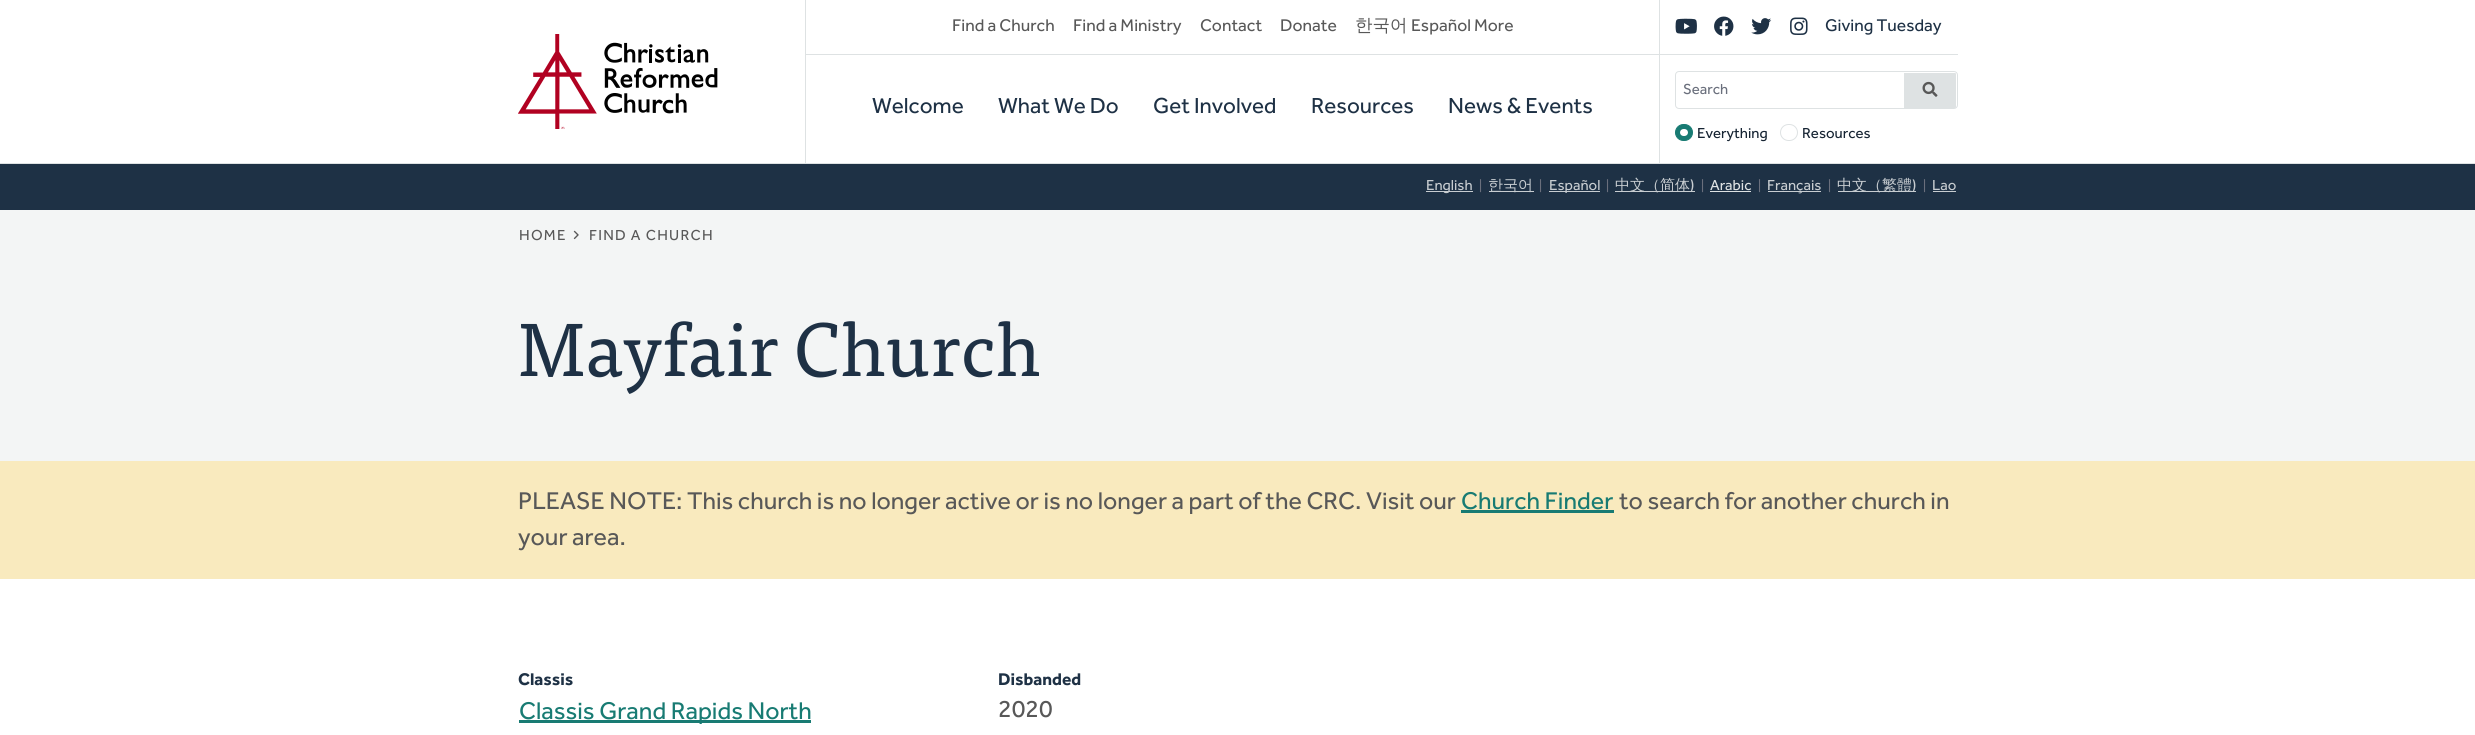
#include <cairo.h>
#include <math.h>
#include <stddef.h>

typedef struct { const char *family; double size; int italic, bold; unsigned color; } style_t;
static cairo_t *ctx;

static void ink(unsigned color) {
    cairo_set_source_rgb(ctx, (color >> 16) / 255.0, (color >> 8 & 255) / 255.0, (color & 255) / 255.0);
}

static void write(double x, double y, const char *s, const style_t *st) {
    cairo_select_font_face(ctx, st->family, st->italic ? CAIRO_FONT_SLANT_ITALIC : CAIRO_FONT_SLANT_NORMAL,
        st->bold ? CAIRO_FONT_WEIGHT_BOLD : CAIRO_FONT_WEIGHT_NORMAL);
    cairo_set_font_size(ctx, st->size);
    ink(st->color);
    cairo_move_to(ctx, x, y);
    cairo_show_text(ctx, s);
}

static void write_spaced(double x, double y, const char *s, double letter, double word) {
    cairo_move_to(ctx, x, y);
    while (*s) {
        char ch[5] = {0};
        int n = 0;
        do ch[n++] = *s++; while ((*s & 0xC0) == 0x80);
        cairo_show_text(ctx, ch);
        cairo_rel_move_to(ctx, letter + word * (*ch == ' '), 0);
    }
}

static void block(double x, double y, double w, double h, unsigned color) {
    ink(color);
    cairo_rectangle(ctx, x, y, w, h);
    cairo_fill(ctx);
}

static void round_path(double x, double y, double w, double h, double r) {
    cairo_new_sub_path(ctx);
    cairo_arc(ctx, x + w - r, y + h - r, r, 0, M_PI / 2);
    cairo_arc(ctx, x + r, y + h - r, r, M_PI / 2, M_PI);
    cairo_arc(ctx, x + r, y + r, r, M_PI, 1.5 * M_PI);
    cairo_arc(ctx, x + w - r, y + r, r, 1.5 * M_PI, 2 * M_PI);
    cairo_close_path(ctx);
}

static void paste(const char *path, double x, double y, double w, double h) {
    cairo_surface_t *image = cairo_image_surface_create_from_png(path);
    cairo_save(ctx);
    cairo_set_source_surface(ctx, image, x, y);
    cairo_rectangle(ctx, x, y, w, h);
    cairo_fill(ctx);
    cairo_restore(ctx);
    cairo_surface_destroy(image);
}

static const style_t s1 = {"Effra", 17.5, 0, 0, 0x585858};
static const style_t s2 = {"WenQuanYi Zen Hei Medium", 17.5, 0, 0, 0x585858};
static const style_t s3 = {"Effra", 17.5, 0, 0, 0x1e3145};
static const style_t s4 = {"Effra", 22.5, 0, 0, 0x1e3145};
static const style_t s5 = {"Effra", 15, 0, 0, 0x6a6f7c};
static const style_t s6 = {"Effra", 15, 0, 0, 0x162433};
static const style_t s7 = {"Effra", 15, 0, 0, 0xc8cdd1};
static const style_t s8 = {"Effra", 13, 0, 0, 0x6a6f7c};
static const style_t s9 = {"WenQuanYi Zen Hei Medium", 15, 0, 0, 0xc8cdd1};
static const style_t s10 = {"Effra", 15, 0, 0, 0xdee2e3};
static const style_t s11 = {"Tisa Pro", 75, 0, 0, 0x1e3145};
static const style_t s12 = {"Effra", 25, 0, 0, 0x585858};
static const style_t s13 = {"Effra", 25, 0, 0, 0x187b73};
static const style_t s14 = {"Effra", 17.5, 0, 1, 0x1e3145};

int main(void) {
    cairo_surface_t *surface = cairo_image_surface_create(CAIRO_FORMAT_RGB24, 2475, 735);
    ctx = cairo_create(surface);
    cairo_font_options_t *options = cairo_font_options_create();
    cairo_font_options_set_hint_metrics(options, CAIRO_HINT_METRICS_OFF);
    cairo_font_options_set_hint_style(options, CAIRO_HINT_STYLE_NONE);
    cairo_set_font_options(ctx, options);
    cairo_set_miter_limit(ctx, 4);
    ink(0xffffff);
    cairo_paint(ctx);
    block(0, 163, 2475, 1, 0xdee2e3);
    paste("pic1.png", 518, 34, 200, 95);
    block(805, 0, 1, 163, 0xdee2e3);
    block(806, 54, 1152, 1, 0xdee2e3);
    write(952, 31, "Find a Church", &s1);
    write(1073, 31, "Find a Ministry", &s1);
    write(1200, 31, "Contact", &s1);
    write(1280, 31, "Donate", &s1);
    write(1355, 31, "한국어", &s2);
    write(1411, 31, "Español More", &s1);
    block(1659, 0, 1, 163, 0xdee2e3);
    paste("pic2.png", 1675, 18, 22, 16);
    paste("pic3.png", 1714, 16, 20, 20);
    paste("pic4.png", 1751, 18, 21, 17);
    paste("pic5.png", 1790, 17, 18, 18);
    write(1825, 31, "Giving Tuesday", &s3);
    write(872, 113, "Welcome", &s4);
    write(998, 113, "What We Do", &s4);
    write(1153, 113, "Get Involved", &s4);
    write(1311, 113, "Resources", &s4);
    write(1448, 113, "News & Events", &s4);
    round_path(1675.5, 71.5, 282, 37, 3.5);
    ink(0xdee2e3);
    cairo_set_line_width(ctx, 1);
    cairo_stroke(ctx);
    write(1683, 94, "Search", &s5);
    ink(0xdee2e3);
    cairo_new_path(ctx);
    cairo_move_to(ctx, 1904, 73);
    cairo_line_to(ctx, 1955, 73);
    cairo_curve_to(ctx, 1955.5, 73, 1956, 73.5, 1956, 74);
    cairo_line_to(ctx, 1956, 107);
    cairo_curve_to(ctx, 1956, 107.5, 1955.5, 108, 1955, 108);
    cairo_line_to(ctx, 1904, 108);
    cairo_close_path(ctx);
    cairo_fill(ctx);
    paste("pic6.png", 1922, 81, 16, 16);
    ink(0x187b73);
    round_path(1675.5, 124.5, 17, 16, 8);
    cairo_fill_preserve(ctx);
    cairo_stroke(ctx);
    write(1697, 138, "Everything", &s6);
    ink(0xffffff);
    round_path(1680, 129, 8, 7, 3.5);
    cairo_fill(ctx);
    round_path(1780.5, 124.5, 17, 16, 8);
    ink(0xdee2e3);
    cairo_stroke(ctx);
    write(1802, 138, "Resources", &s6);
    block(0, 164, 2475, 46, 0x1e3145);
    block(1426, 191, 47, 1, 0xc8cdd1);
    write(1426, 190, "English", &s7);
    write(1479, 190, "|", &s8);
    block(1489, 191, 45, 1, 0xc8cdd1);
    write(1488, 190, "한국어", &s9);
    write(1539, 190, "|", &s8);
    block(1549, 191, 51, 1, 0xc8cdd1);
    write(1549, 190, "Español", &s7);
    write(1606, 190, "|", &s8);
    block(1615, 191, 80, 1, 0xc8cdd1);
    write(1615, 190, "中文（简体", &s9);
    write(1690, 190, ")", &s7);
    write(1701, 190, "|", &s8);
    write(1710, 190, "Arabic", &s10);
    block(1710, 191, 41, 1, 0xdee2e3);
    write(1758, 190, "|", &s8);
    block(1768, 191, 53, 1, 0xc8cdd1);
    write(1767, 190, "Français", &s7);
    write(1828, 190, "|", &s8);
    block(1838, 191, 78, 1, 0xc8cdd1);
    write(1837, 190, "中文（繁體", &s9);
    write(1912, 190, ")", &s7);
    write(1923, 190, "|", &s8);
    write(1932, 190, "Lao", &s7);
    block(1933, 191, 23, 1, 0xc8cdd1);
    block(0, 210, 2475, 251, 0xf3f5f5);
    ink(0x585858);
    write_spaced(519, 240, "HOME", 1.25, 0);
    paste("pic7.png", 573, 230, 6, 10);
    write_spaced(589, 240, "FIND A CHURCH", 1.25, 0);
    write(518, 376, "Mayfair Church", &s11);
    block(0, 461, 2475, 118, 0xf9eabe);
    write(518, 509, "PLEASE NOTE: This church is no longer active or is no longer a part of the CRC. Visit our", &s12);
    write(1461, 509, "Church Finder", &s13);
    block(1461, 510, 153, 3, 0x187b73);
    write(1619, 509, "to search for another church in", &s12);
    write(518, 545, "your area.", &s12);
    write(518, 685, "Classis", &s14);
    block(519, 720, 292, 3, 0x187b73);
    write(519, 719, "Classis Grand Rapids North", &s13);
    write(998, 685, "Disbanded", &s14);
    write(998, 717, "2020", &s12);
    cairo_surface_write_to_png(surface, "screenshot.png");
    cairo_font_options_destroy(options);
    cairo_destroy(ctx);
    cairo_surface_destroy(surface);
    return 0;
}
